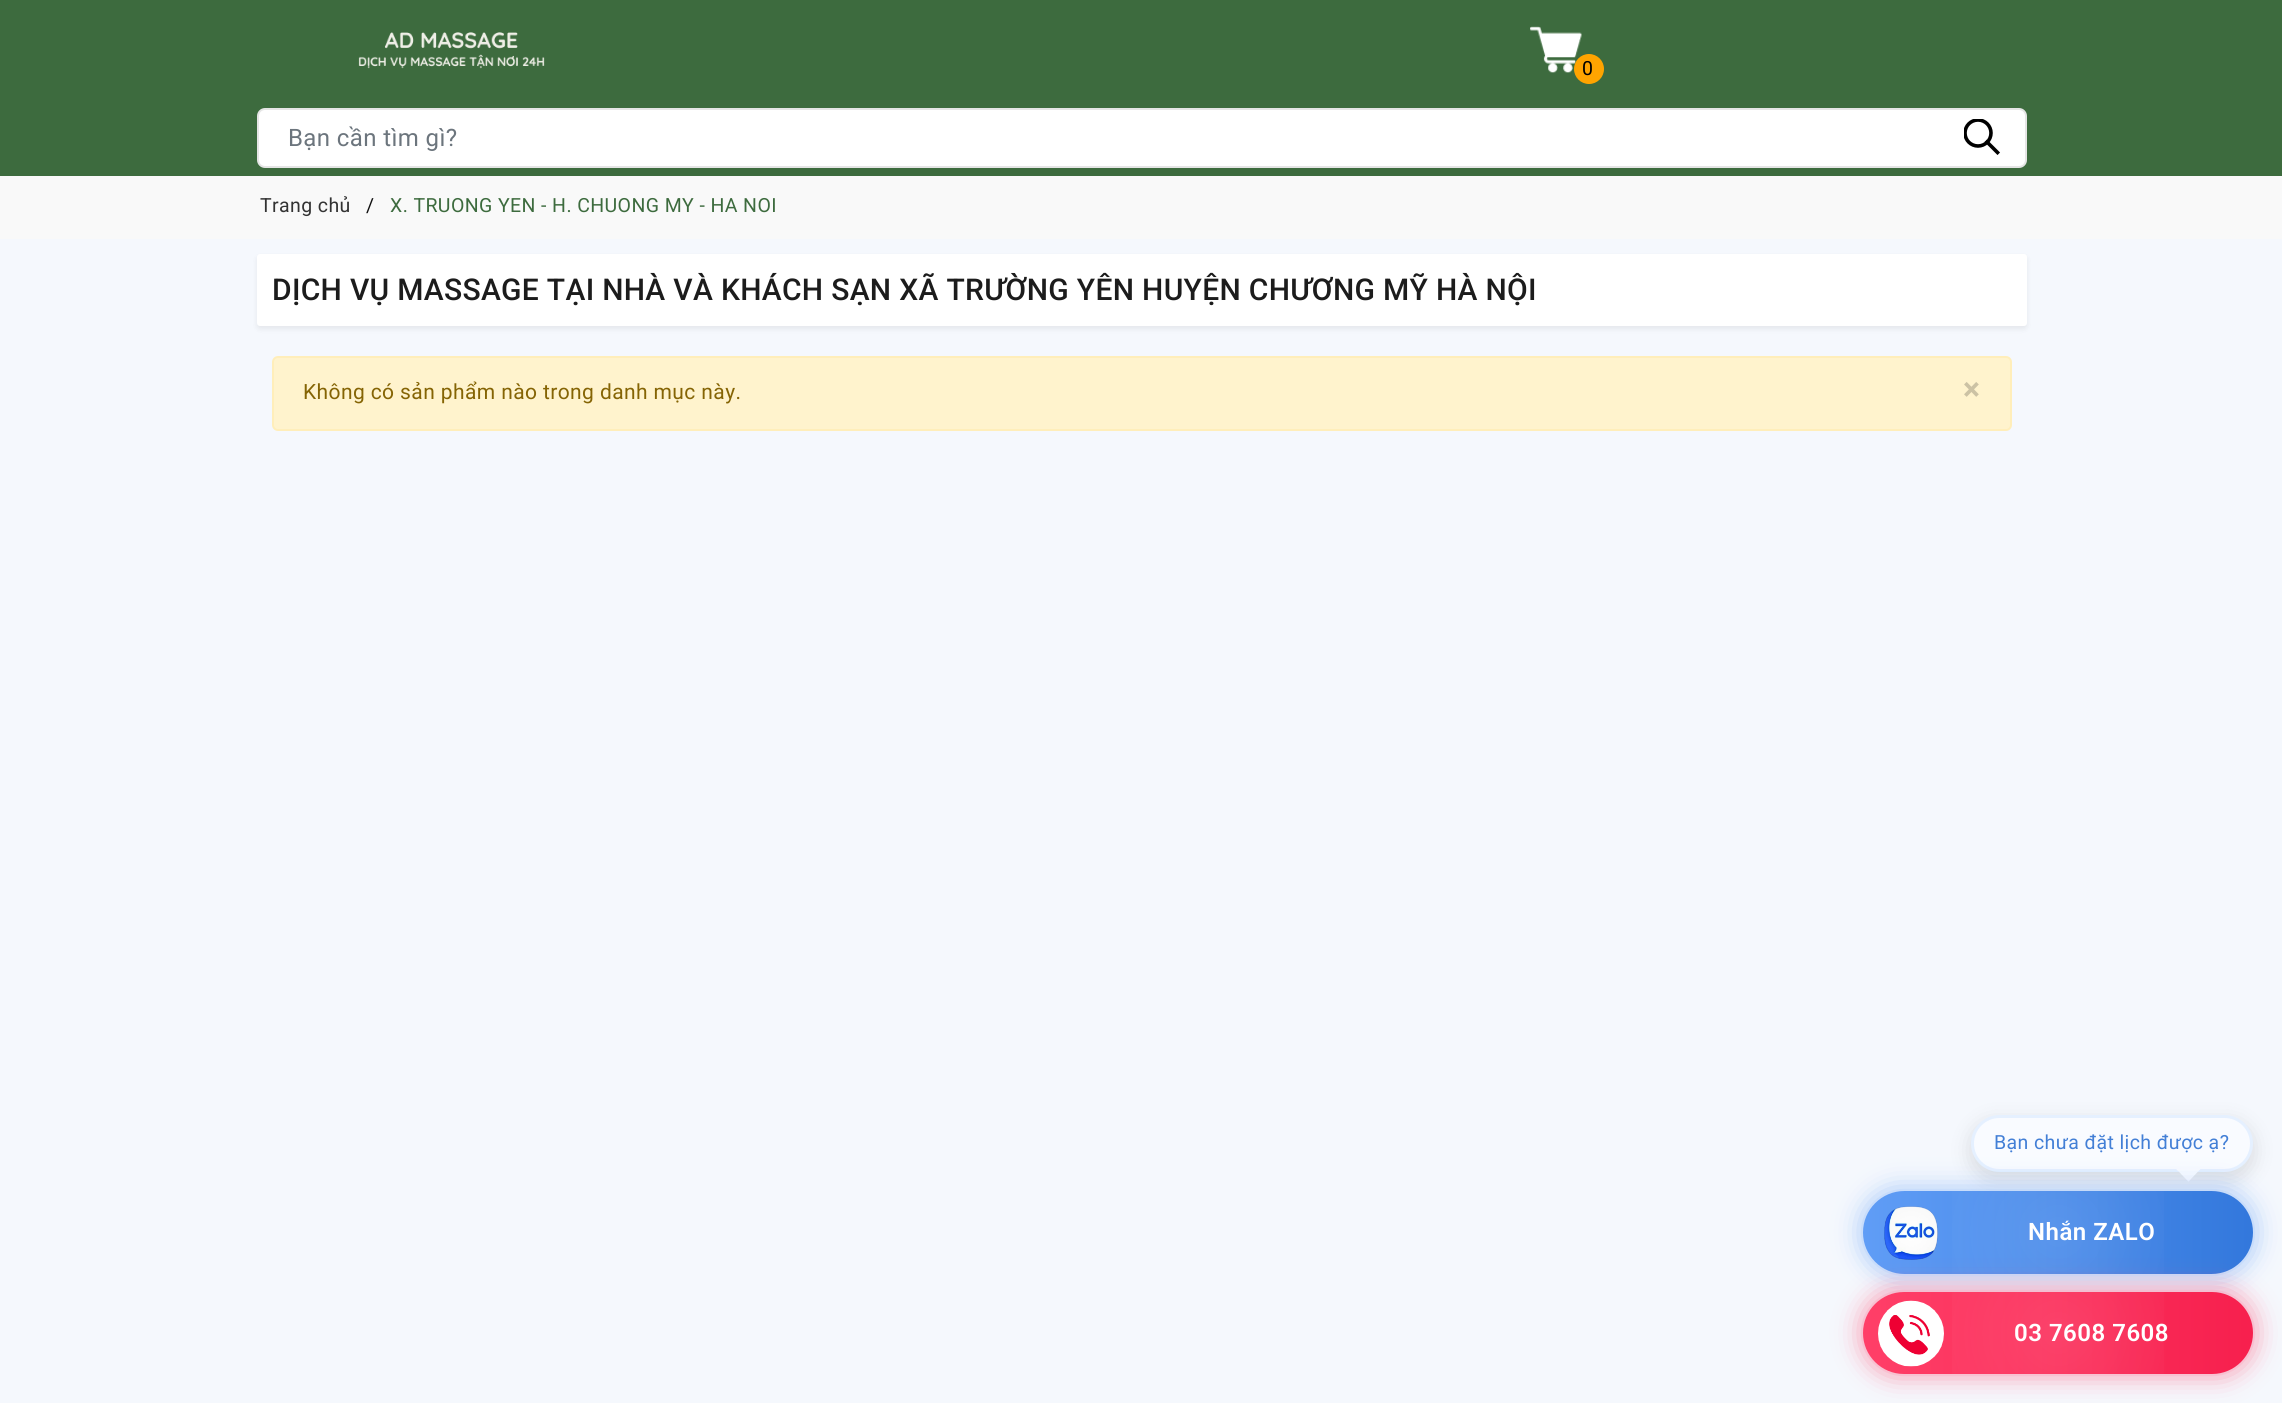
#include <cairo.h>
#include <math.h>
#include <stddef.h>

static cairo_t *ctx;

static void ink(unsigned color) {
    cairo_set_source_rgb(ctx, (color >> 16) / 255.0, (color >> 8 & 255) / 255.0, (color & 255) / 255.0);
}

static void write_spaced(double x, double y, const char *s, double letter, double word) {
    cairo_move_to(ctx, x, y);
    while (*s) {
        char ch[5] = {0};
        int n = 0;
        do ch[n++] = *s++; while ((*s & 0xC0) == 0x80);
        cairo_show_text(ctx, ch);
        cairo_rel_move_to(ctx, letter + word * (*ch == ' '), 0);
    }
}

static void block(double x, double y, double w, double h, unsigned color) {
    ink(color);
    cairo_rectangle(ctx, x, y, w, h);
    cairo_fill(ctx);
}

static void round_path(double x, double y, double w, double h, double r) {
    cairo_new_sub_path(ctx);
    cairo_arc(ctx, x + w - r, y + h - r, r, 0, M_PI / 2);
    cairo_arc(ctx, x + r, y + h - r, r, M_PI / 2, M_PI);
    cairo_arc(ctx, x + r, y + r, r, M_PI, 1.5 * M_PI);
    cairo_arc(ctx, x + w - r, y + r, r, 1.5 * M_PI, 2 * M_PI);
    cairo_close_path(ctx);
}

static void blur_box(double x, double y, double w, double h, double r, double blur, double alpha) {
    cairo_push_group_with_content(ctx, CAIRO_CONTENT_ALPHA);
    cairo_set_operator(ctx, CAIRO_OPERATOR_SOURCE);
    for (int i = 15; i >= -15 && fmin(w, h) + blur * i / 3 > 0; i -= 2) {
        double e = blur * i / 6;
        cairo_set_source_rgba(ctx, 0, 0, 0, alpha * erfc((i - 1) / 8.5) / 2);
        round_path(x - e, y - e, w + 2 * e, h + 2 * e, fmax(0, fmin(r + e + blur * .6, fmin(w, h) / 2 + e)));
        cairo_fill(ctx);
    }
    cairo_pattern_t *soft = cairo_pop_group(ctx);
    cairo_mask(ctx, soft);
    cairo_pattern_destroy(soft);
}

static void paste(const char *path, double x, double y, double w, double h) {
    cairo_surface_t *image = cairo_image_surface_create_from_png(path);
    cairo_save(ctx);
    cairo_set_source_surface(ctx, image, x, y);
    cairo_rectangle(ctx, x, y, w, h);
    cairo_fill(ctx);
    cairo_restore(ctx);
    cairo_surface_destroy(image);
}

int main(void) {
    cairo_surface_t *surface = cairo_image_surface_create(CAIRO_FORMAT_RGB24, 2282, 1403);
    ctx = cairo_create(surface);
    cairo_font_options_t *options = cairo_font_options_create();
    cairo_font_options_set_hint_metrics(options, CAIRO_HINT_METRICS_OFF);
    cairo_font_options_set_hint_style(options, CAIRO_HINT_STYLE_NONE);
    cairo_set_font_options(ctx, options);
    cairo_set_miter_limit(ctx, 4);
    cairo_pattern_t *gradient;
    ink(0xf5f8fd);
    cairo_paint(ctx);
    block(0, 0, 2282, 176, 0x3d6b3e);
    paste("pic1.png", 358, 32, 187, 37);
    paste("pic2.png", 1530, 26, 52, 47);
    ink(0xffa400);
    cairo_arc(ctx, 1589, 69, 15, 0, 2 * M_PI);
    cairo_fill(ctx);
    cairo_select_font_face(ctx, "Roboto", CAIRO_FONT_SLANT_NORMAL, CAIRO_FONT_WEIGHT_NORMAL);
    cairo_set_font_size(ctx, 19.5);
    ink(0x000000);
    write_spaced(1582, 75, "0", 0.4, 0);
    ink(0xffffff);
    round_path(258, 109, 1768, 58, 7);
    cairo_fill_preserve(ctx);
    ink(0xe5e5e5);
    cairo_stroke(ctx);
    cairo_set_font_size(ctx, 24);
    ink(0x6c757d);
    write_spaced(288, 146, "Bạn cần tìm gì?", 0.4, 0);
    cairo_new_path(ctx);
    cairo_move_to(ctx, 1997.5, 152.5);
    cairo_line_to(ctx, 1987, 142);
    ink(0x000000);
    cairo_set_line_width(ctx, 3.6);
    cairo_set_line_cap(ctx, CAIRO_LINE_CAP_SQUARE);
    cairo_stroke(ctx);
    cairo_save(ctx);
    cairo_rectangle(ctx, 1964, 119, 37, 37);
    cairo_clip(ctx);
    cairo_arc(ctx, 1978, 133, 13, 0, 2 * M_PI);
    cairo_set_line_cap(ctx, CAIRO_LINE_CAP_BUTT);
    cairo_stroke(ctx);
    cairo_restore(ctx);
    block(0, 176, 2282, 63, 0xf9f9f9);
    cairo_set_font_size(ctx, 19.5);
    ink(0x333333);
    write_spaced(260, 212, "Trang chủ", 0.4, 0);
    ink(0x111111);
    write_spaced(366, 212, "/", 0.4, 0);
    ink(0x3d6b3e);
    write_spaced(390, 212, "X. TRUONG YEN - H. CHUONG MY - HA NOI", 0.4, 0);
    ink(0x000000);
    blur_box(257, 257, 1770, 72, 3, 3, 0.07);
    ink(0xffffff);
    round_path(257, 254, 1770, 72, 3);
    cairo_fill(ctx);
    cairo_select_font_face(ctx, "Roboto Medium", CAIRO_FONT_SLANT_NORMAL, CAIRO_FONT_WEIGHT_NORMAL);
    cairo_set_font_size(ctx, 30);
    ink(0x1c1c1c);
    write_spaced(272, 300, "DỊCH VỤ MASSAGE TẠI NHÀ VÀ KHÁCH SẠN XÃ TRƯỜNG YÊN HUYỆN CHƯƠNG MỸ HÀ NỘI", 0.3, 0);
    ink(0xfff3cd);
    round_path(273, 357, 1738, 73, 5);
    cairo_fill_preserve(ctx);
    ink(0xffeeba);
    cairo_set_line_width(ctx, 2);
    cairo_set_line_cap(ctx, CAIRO_LINE_CAP_BUTT);
    cairo_stroke(ctx);
    cairo_select_font_face(ctx, "Roboto", CAIRO_FONT_SLANT_NORMAL, CAIRO_FONT_WEIGHT_NORMAL);
    cairo_set_font_size(ctx, 21);
    ink(0x856404);
    write_spaced(303, 399, "Không có sản phẩm nào trong danh mục này.", 0.4, 0);
    cairo_select_font_face(ctx, "Roboto", CAIRO_FONT_SLANT_NORMAL, CAIRO_FONT_WEIGHT_BOLD);
    cairo_set_font_size(ctx, 32);
    ink(0xccc2a4);
    write_spaced(1963, 400, "×", 0.4, 0);
    ink(0x000000);
    blur_box(1971, 1122, 282, 57, 28.5, 11, 0.12);
    ink(0xf9fbff);
    round_path(1972.5, 1116.5, 279, 54, 27);
    cairo_fill_preserve(ctx);
    ink(0xe5f0ff);
    cairo_set_line_width(ctx, 3);
    cairo_stroke(ctx);
    cairo_select_font_face(ctx, "Roboto", CAIRO_FONT_SLANT_NORMAL, CAIRO_FONT_WEIGHT_NORMAL);
    cairo_set_font_size(ctx, 19.5);
    ink(0x437fd6);
    write_spaced(1994, 1149, "Bạn chưa đặt lịch được ạ?", 0.4, 0);
    ink(0xf9fbff);
    cairo_new_path(ctx);
    cairo_move_to(ctx, 2188.5, 1156);
    cairo_line_to(ctx, 2201, 1168.5);
    cairo_line_to(ctx, 2188.5, 1181.5);
    cairo_line_to(ctx, 2176, 1168.5);
    cairo_close_path(ctx);
    cairo_fill(ctx);
    cairo_new_path(ctx);
    cairo_move_to(ctx, 2178, 1166.5);
    cairo_line_to(ctx, 2190.5, 1179);
    cairo_line_to(ctx, 2188.5, 1181.5);
    cairo_line_to(ctx, 2176, 1168.5);
    cairo_close_path(ctx);
    cairo_fill(ctx);
    cairo_new_path(ctx);
    cairo_move_to(ctx, 2188.5, 1156);
    cairo_line_to(ctx, 2190.5, 1158);
    cairo_line_to(ctx, 2178, 1171);
    cairo_line_to(ctx, 2176, 1168.5);
    cairo_close_path(ctx);
    cairo_fill(ctx);
    ink(0x609df6);
    blur_box(1863, 1191, 390, 83, 41.5, 13.5, 0.6);
    gradient = cairo_pattern_create_linear(1863, 1274, 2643, 1274);
    cairo_pattern_add_color_stop_rgba(gradient, 0, 0.376, 0.616, 0.965, 1);
    cairo_pattern_add_color_stop_rgba(gradient, 1, 0.02, 0.322, 0.761, 1);
    cairo_set_source(ctx, gradient);
    cairo_pattern_destroy(gradient);
    round_path(1863, 1191, 390, 83, 41.5);
    cairo_fill(ctx);
    paste("pic3.png", 1884, 1206, 54, 54);
    gradient = cairo_pattern_create_radial(2058, 1232, 0, 2058, 1232, 199);
    cairo_pattern_add_color_stop_rgba(gradient, 0, 1, 1, 1, 0.09);
    cairo_pattern_add_color_stop_rgba(gradient, 0.7, 1, 1, 1, 0);
    cairo_set_source(ctx, gradient);
    cairo_pattern_destroy(gradient);
    cairo_rectangle(ctx, 1952, 1191, 212, 83);
    cairo_fill(ctx);
    cairo_select_font_face(ctx, "Roboto SemiBold", CAIRO_FONT_SLANT_NORMAL, CAIRO_FONT_WEIGHT_NORMAL);
    cairo_set_font_size(ctx, 24);
    ink(0xffffff);
    write_spaced(2028, 1240, "Nhắn ZALO", 0.5, 0);
    ink(0xff3f68);
    blur_box(1863, 1292, 390, 82, 41, 13.5, 0.6);
    gradient = cairo_pattern_create_linear(1863, 1374, 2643, 1374);
    cairo_pattern_add_color_stop_rgba(gradient, 0, 1, 0.247, 0.408, 1);
    cairo_pattern_add_color_stop_rgba(gradient, 1, 0.933, 0, 0.2, 1);
    cairo_set_source(ctx, gradient);
    cairo_pattern_destroy(gradient);
    round_path(1863, 1292, 390, 82, 41);
    cairo_fill(ctx);
    paste("pic4.png", 1878, 1300, 66, 67);
    gradient = cairo_pattern_create_radial(2058, 1333, 0, 2058, 1333, 199);
    cairo_pattern_add_color_stop_rgba(gradient, 0, 1, 1, 1, 0.09);
    cairo_pattern_add_color_stop_rgba(gradient, 0.7, 1, 1, 1, 0);
    cairo_set_source(ctx, gradient);
    cairo_pattern_destroy(gradient);
    cairo_rectangle(ctx, 1952, 1292, 212, 82);
    cairo_fill(ctx);
    ink(0xffffff);
    write_spaced(2014, 1341, "03 7608 7608", 0.5, 0);
    cairo_surface_write_to_png(surface, "screenshot.png");
    cairo_font_options_destroy(options);
    cairo_destroy(ctx);
    cairo_surface_destroy(surface);
    return 0;
}
